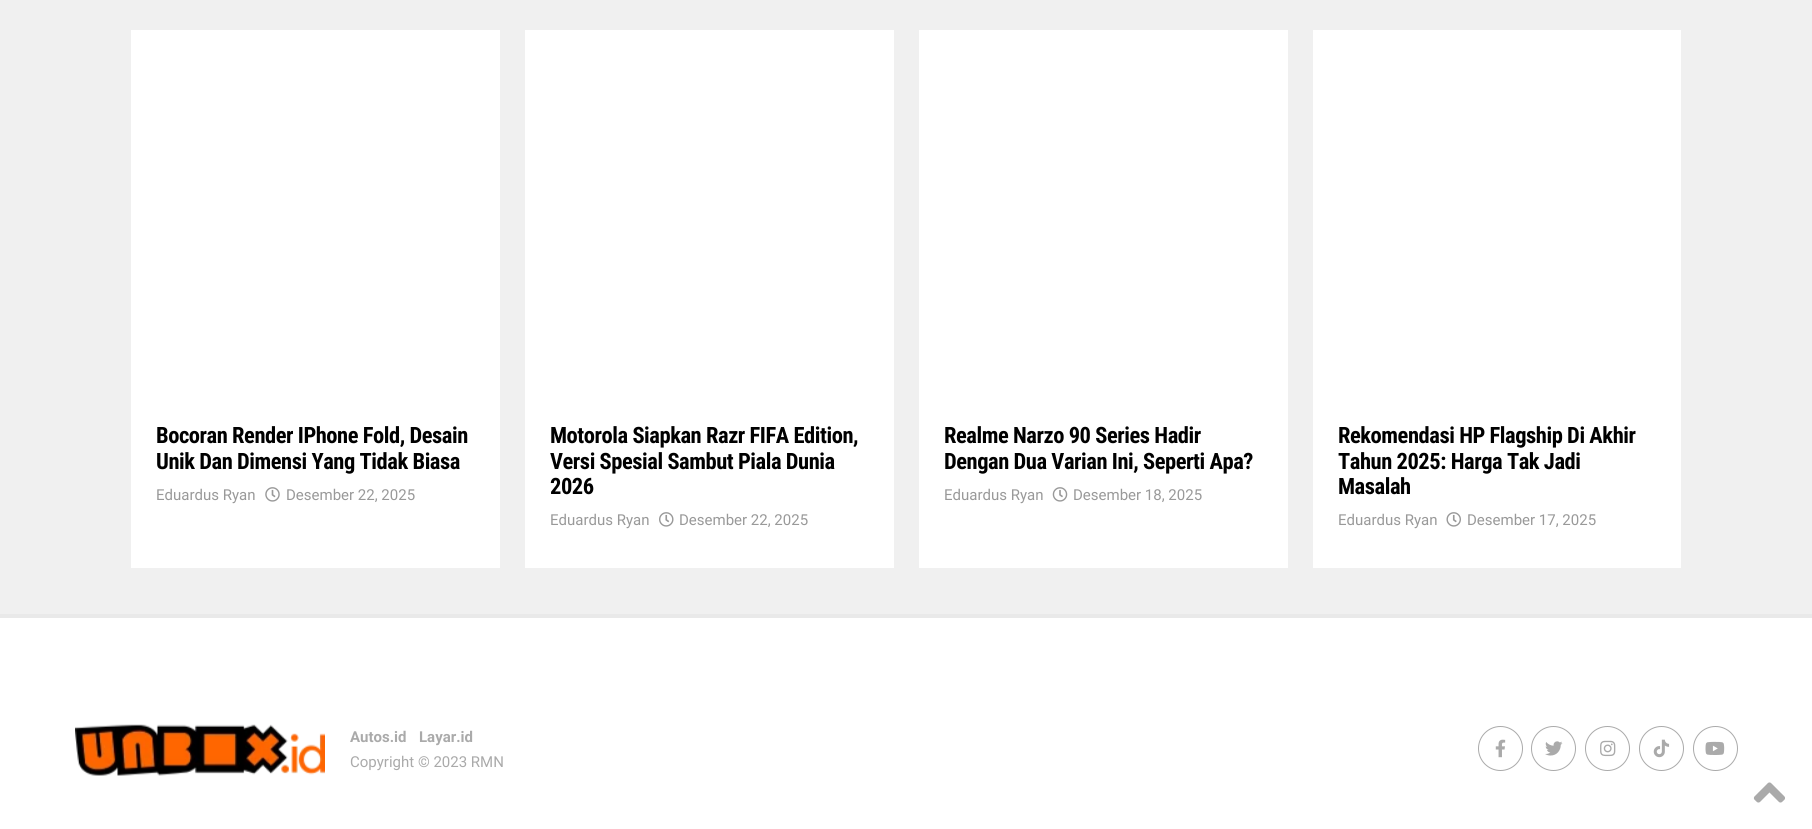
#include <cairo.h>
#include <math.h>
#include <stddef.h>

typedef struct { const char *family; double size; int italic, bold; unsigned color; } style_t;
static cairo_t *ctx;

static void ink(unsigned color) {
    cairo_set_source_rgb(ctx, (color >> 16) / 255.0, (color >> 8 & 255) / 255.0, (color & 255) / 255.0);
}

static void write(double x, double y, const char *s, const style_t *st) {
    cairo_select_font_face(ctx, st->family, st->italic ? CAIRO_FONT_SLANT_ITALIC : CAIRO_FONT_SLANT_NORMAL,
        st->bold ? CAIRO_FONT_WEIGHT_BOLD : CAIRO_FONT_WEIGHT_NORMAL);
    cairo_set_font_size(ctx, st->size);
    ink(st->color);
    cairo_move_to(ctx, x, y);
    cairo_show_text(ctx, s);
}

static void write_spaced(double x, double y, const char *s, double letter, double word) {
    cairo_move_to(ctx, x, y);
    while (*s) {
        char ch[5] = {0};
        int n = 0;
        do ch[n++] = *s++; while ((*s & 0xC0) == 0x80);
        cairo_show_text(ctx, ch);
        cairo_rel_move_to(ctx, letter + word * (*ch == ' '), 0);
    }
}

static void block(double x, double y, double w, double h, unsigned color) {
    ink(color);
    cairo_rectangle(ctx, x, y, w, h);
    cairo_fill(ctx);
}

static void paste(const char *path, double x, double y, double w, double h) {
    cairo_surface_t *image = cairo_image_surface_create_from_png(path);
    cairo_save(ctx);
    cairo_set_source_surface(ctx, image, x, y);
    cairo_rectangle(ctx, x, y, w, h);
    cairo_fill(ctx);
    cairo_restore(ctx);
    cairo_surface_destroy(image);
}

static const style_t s1 = {"Roboto", 15, 0, 0, 0x999999};
static const style_t s2 = {"Roboto", 15, 0, 1, 0xaaaaaa};
static const style_t s3 = {"Roboto", 15, 0, 0, 0xaaaaaa};

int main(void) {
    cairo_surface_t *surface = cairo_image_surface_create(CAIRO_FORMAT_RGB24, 1812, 829);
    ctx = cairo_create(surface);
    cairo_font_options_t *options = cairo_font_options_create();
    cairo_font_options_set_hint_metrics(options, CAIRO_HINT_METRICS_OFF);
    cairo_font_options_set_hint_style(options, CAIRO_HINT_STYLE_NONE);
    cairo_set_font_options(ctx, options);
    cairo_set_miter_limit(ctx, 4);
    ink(0xf0f0f0);
    cairo_paint(ctx);
    block(131, 30, 369, 538, 0xffffff);
    cairo_select_font_face(ctx, "Roboto Condensed", CAIRO_FONT_SLANT_NORMAL, CAIRO_FONT_WEIGHT_BOLD);
    cairo_set_font_size(ctx, 22.5);
    ink(0x000000);
    write_spaced(156, 443, "Bocoran Render IPhone Fold, Desain", -0.45, 0);
    write_spaced(156, 469, "Unik Dan Dimensi Yang Tidak Biasa", -0.45, 0);
    write(156, 500, "Eduardus Ryan", &s1);
    paste("pic1.png", 265, 487, 15, 15);
    write(286, 500, "Desember 22, 2025", &s1);
    block(525, 30, 369, 538, 0xffffff);
    cairo_select_font_face(ctx, "Roboto Condensed", CAIRO_FONT_SLANT_NORMAL, CAIRO_FONT_WEIGHT_BOLD);
    cairo_set_font_size(ctx, 22.5);
    ink(0x000000);
    write_spaced(550, 443, "Motorola Siapkan Razr FIFA Edition,", -0.45, 0);
    write_spaced(550, 469, "Versi Spesial Sambut Piala Dunia", -0.45, 0);
    write_spaced(550, 494, "2026", -0.45, 0);
    write(550, 525, "Eduardus Ryan", &s1);
    paste("pic2.png", 659, 512, 15, 15);
    write(679, 525, "Desember 22, 2025", &s1);
    block(919, 30, 369, 538, 0xffffff);
    cairo_select_font_face(ctx, "Roboto Condensed", CAIRO_FONT_SLANT_NORMAL, CAIRO_FONT_WEIGHT_BOLD);
    cairo_set_font_size(ctx, 22.5);
    ink(0x000000);
    write_spaced(944, 443, "Realme Narzo 90 Series Hadir", -0.45, 0);
    write_spaced(944, 469, "Dengan Dua Varian Ini, Seperti Apa?", -0.45, 0);
    write(944, 500, "Eduardus Ryan", &s1);
    paste("pic3.png", 1052, 487, 16, 15);
    write(1073, 500, "Desember 18, 2025", &s1);
    block(1313, 30, 368, 538, 0xffffff);
    cairo_select_font_face(ctx, "Roboto Condensed", CAIRO_FONT_SLANT_NORMAL, CAIRO_FONT_WEIGHT_BOLD);
    cairo_set_font_size(ctx, 22.5);
    ink(0x000000);
    write_spaced(1338, 443, "Rekomendasi HP Flagship Di Akhir", -0.45, 0);
    write_spaced(1338, 469, "Tahun 2025: Harga Tak Jadi", -0.45, 0);
    write_spaced(1338, 494, "Masalah", -0.45, 0);
    write(1338, 525, "Eduardus Ryan", &s1);
    paste("pic4.png", 1446, 512, 15, 15);
    write(1467, 525, "Desember 17, 2025", &s1);
    block(0, 618, 1812, 211, 0xffffff);
    block(0, 614, 1812, 4, 0xe9e9e9);
    paste("pic5.png", 75, 724, 250, 52);
    write(350, 742, "Autos.id", &s2);
    write(419, 742, "Layar.id", &s2);
    write(350, 767, "Copyright © 2023 RMN", &s3);
    cairo_new_path(ctx);
    cairo_arc(ctx, 1500.5, 748.5, 22, 0, 2 * M_PI);
    cairo_set_line_width(ctx, 1);
    cairo_stroke(ctx);
    paste("pic6.png", 1495, 739, 11, 19);
    cairo_arc(ctx, 1553.5, 748.5, 22, 0, 2 * M_PI);
    cairo_stroke(ctx);
    paste("pic7.png", 1545, 741, 18, 15);
    cairo_arc(ctx, 1607.5, 748.5, 22, 0, 2 * M_PI);
    cairo_stroke(ctx);
    paste("pic8.png", 1600, 740, 16, 17);
    cairo_arc(ctx, 1661.5, 748.5, 22, 0, 2 * M_PI);
    cairo_stroke(ctx);
    paste("pic9.png", 1653, 739, 17, 19);
    cairo_arc(ctx, 1715.5, 748.5, 22, 0, 2 * M_PI);
    cairo_stroke(ctx);
    paste("pic10.png", 1705, 741, 20, 14);
    paste("pic11.png", 1753, 782, 32, 21);
    cairo_surface_write_to_png(surface, "screenshot.png");
    cairo_font_options_destroy(options);
    cairo_destroy(ctx);
    cairo_surface_destroy(surface);
    return 0;
}
